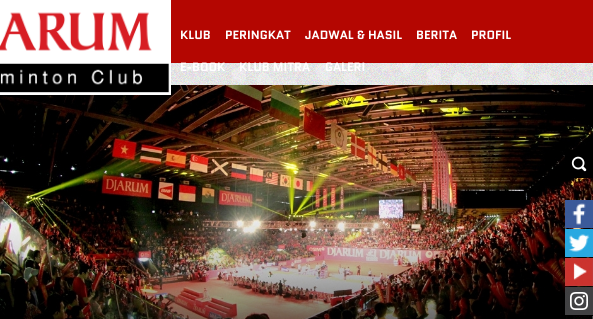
#include <cairo.h>
#include <math.h>
#include <stddef.h>

typedef struct { const char *family; double size; int italic, bold; unsigned color; } style_t;
static cairo_t *ctx;

static void ink(unsigned color) {
    cairo_set_source_rgb(ctx, (color >> 16) / 255.0, (color >> 8 & 255) / 255.0, (color & 255) / 255.0);
}

static void write(double x, double y, const char *s, const style_t *st) {
    cairo_select_font_face(ctx, st->family, st->italic ? CAIRO_FONT_SLANT_ITALIC : CAIRO_FONT_SLANT_NORMAL,
        st->bold ? CAIRO_FONT_WEIGHT_BOLD : CAIRO_FONT_WEIGHT_NORMAL);
    cairo_set_font_size(ctx, st->size);
    ink(st->color);
    cairo_move_to(ctx, x, y);
    cairo_show_text(ctx, s);
}

static void block(double x, double y, double w, double h, unsigned color) {
    ink(color);
    cairo_rectangle(ctx, x, y, w, h);
    cairo_fill(ctx);
}

static void paste(const char *path, double x, double y, double w, double h) {
    cairo_surface_t *image = cairo_image_surface_create_from_png(path);
    cairo_save(ctx);
    cairo_set_source_surface(ctx, image, x, y);
    cairo_rectangle(ctx, x, y, w, h);
    cairo_fill(ctx);
    cairo_restore(ctx);
    cairo_surface_destroy(image);
}

static const style_t s1 = {"quantico", 12, 0, 1, 0xffffff};

int main(void) {
    cairo_surface_t *surface = cairo_image_surface_create(CAIRO_FORMAT_RGB24, 593, 319);
    ctx = cairo_create(surface);
    cairo_font_options_t *options = cairo_font_options_create();
    cairo_font_options_set_hint_metrics(options, CAIRO_HINT_METRICS_OFF);
    cairo_font_options_set_hint_style(options, CAIRO_HINT_STYLE_NONE);
    cairo_set_font_options(ctx, options);
    cairo_set_miter_limit(ctx, 4);
    ink(0xffffff);
    cairo_paint(ctx);
    paste("pic1.png", 171, 63, 422, 22);
    block(171, 0, 422, 63, 0xb40601);
    paste("pic3.png", 0, 85, 593, 234);
    paste("pic2.png", 0, 0, 170, 93);
    block(170, 85, 1, 10, 0xffffff);
    block(0, 93, 171, 2, 0xffffff);
    write(180, 39, "KLUB", &s1);
    write(225, 39, "PERINGKAT", &s1);
    write(305, 39, "JADWAL & HASIL", &s1);
    write(416, 39, "BERITA", &s1);
    write(471, 39, "PROFIL", &s1);
    write(180, 71, "E-BOOK", &s1);
    write(239, 71, "KLUB MITRA", &s1);
    write(325, 71, "GALERI", &s1);
    paste("pic4.png", 565, 150, 28, 28);
    paste("pic5.png", 565, 200, 28, 28);
    paste("pic6.png", 565, 229, 28, 28);
    paste("pic7.png", 565, 258, 28, 28);
    paste("pic8.png", 565, 287, 28, 28);
    paste("pic9.png", 573, 316, 20, 3);
    cairo_surface_write_to_png(surface, "screenshot.png");
    cairo_font_options_destroy(options);
    cairo_destroy(ctx);
    cairo_surface_destroy(surface);
    return 0;
}
